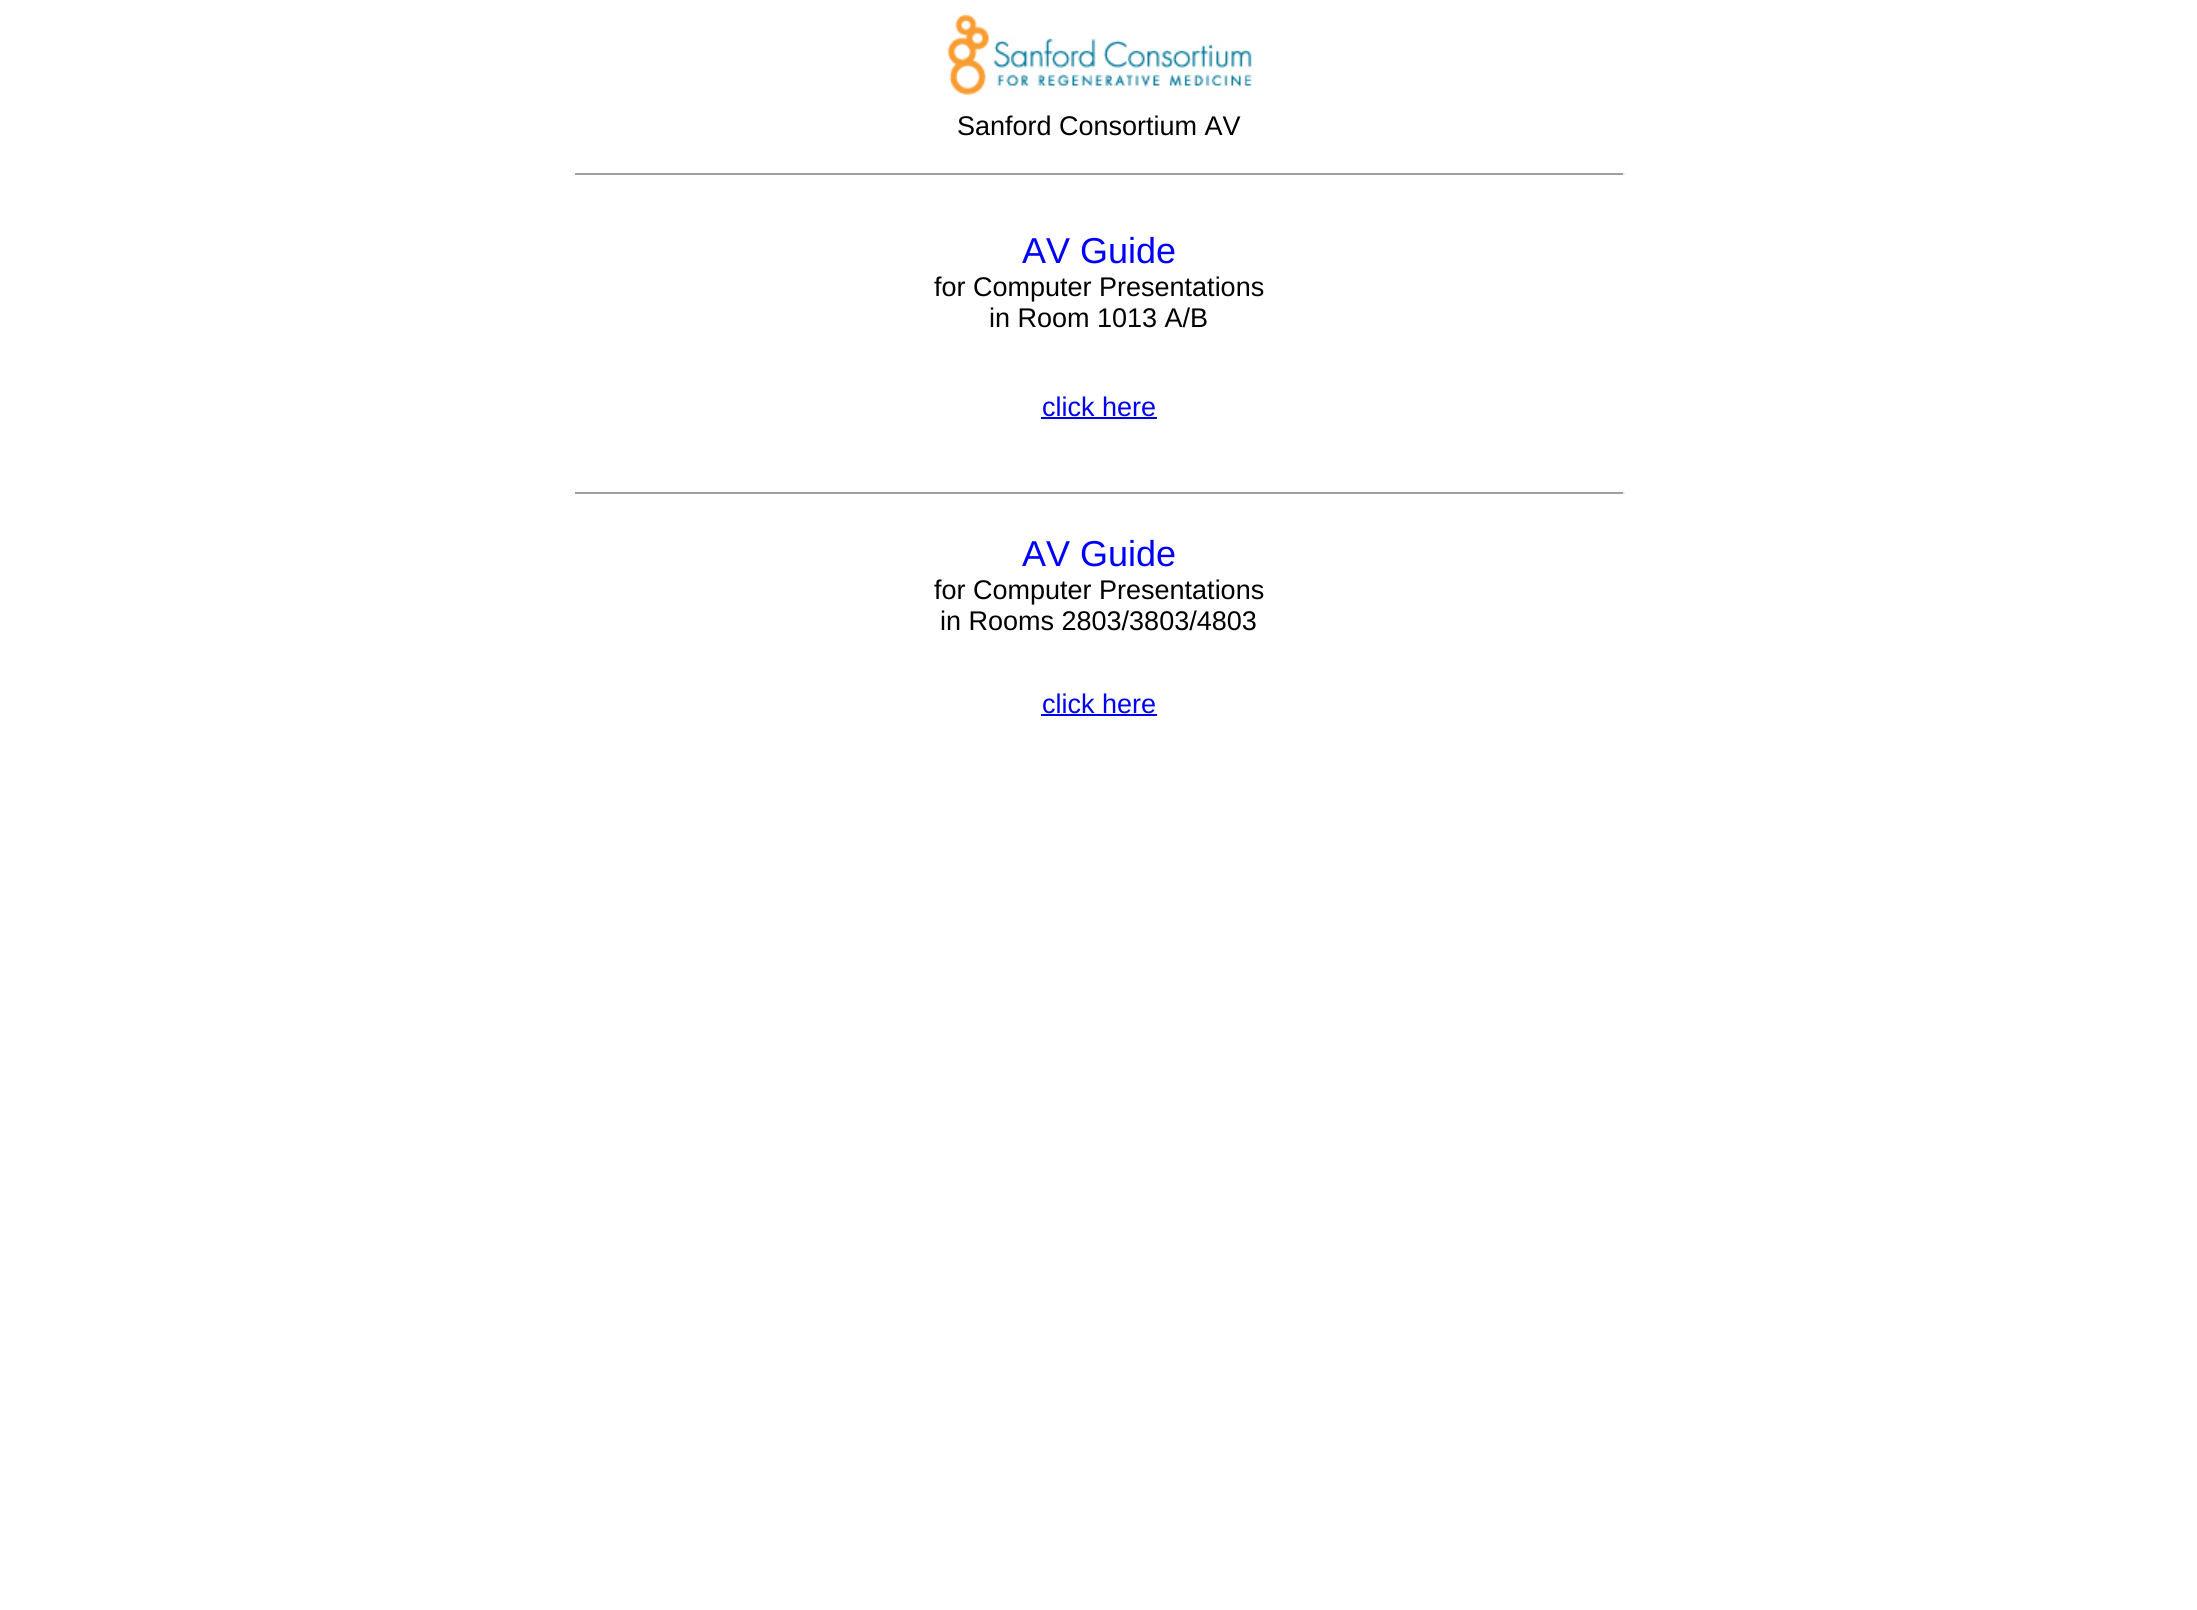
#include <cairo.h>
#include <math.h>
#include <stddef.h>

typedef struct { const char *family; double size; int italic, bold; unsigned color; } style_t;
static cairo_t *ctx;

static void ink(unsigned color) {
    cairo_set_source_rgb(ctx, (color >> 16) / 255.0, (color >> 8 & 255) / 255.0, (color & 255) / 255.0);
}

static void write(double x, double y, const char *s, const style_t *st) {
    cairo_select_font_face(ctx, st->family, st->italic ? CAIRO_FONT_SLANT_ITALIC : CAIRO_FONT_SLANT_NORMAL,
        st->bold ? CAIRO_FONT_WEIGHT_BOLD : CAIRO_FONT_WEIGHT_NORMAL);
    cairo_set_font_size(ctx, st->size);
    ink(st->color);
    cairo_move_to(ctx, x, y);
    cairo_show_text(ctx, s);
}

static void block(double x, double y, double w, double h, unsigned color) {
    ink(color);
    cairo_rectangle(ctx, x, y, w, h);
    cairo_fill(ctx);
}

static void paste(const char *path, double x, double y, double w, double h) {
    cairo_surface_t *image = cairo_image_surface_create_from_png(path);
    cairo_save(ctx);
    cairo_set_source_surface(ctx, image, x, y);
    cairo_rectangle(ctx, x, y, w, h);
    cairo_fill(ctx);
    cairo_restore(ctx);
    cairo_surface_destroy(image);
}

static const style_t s1 = {"Liberation Sans", 27, 0, 0, 0x000000};
static const style_t s2 = {"Liberation Sans", 36, 0, 0, 0x0000ff};
static const style_t s3 = {"Liberation Sans", 27, 0, 0, 0x0000ee};

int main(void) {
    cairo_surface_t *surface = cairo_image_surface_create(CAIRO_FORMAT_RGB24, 2197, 1610);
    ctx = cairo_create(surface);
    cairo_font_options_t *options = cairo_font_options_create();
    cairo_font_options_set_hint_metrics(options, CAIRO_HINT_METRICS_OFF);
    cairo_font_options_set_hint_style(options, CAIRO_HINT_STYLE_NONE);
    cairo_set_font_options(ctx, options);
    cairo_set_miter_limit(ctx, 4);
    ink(0xffffff);
    cairo_paint(ctx);
    paste("pic1.png", 947, 14, 305, 81);
    write(957, 135, "Sanford Consortium AV", &s1);
    block(575, 173, 1050, 2, 0x9f9f9f);
    block(1623, 173, 2, 2, 0xeeeeee);
    write(1022, 263, "AV Guide", &s2);
    write(934, 296, "for Computer Presentations", &s1);
    write(989, 327, "in Room 1013 A/B", &s1);
    write(1042, 416, "click here", &s3);
    block(1041, 417, 116, 2, 0x0000ee);
    block(575, 492, 1050, 2, 0x9f9f9f);
    block(1623, 492, 2, 2, 0xeeeeee);
    write(1022, 566, "AV Guide", &s2);
    write(934, 599, "for Computer Presentations", &s1);
    write(940, 630, "in Rooms 2803/3803/4803", &s1);
    write(1042, 713, "click here", &s3);
    block(1041, 714, 116, 2, 0x0000ee);
    cairo_surface_write_to_png(surface, "screenshot.png");
    cairo_font_options_destroy(options);
    cairo_destroy(ctx);
    cairo_surface_destroy(surface);
    return 0;
}
